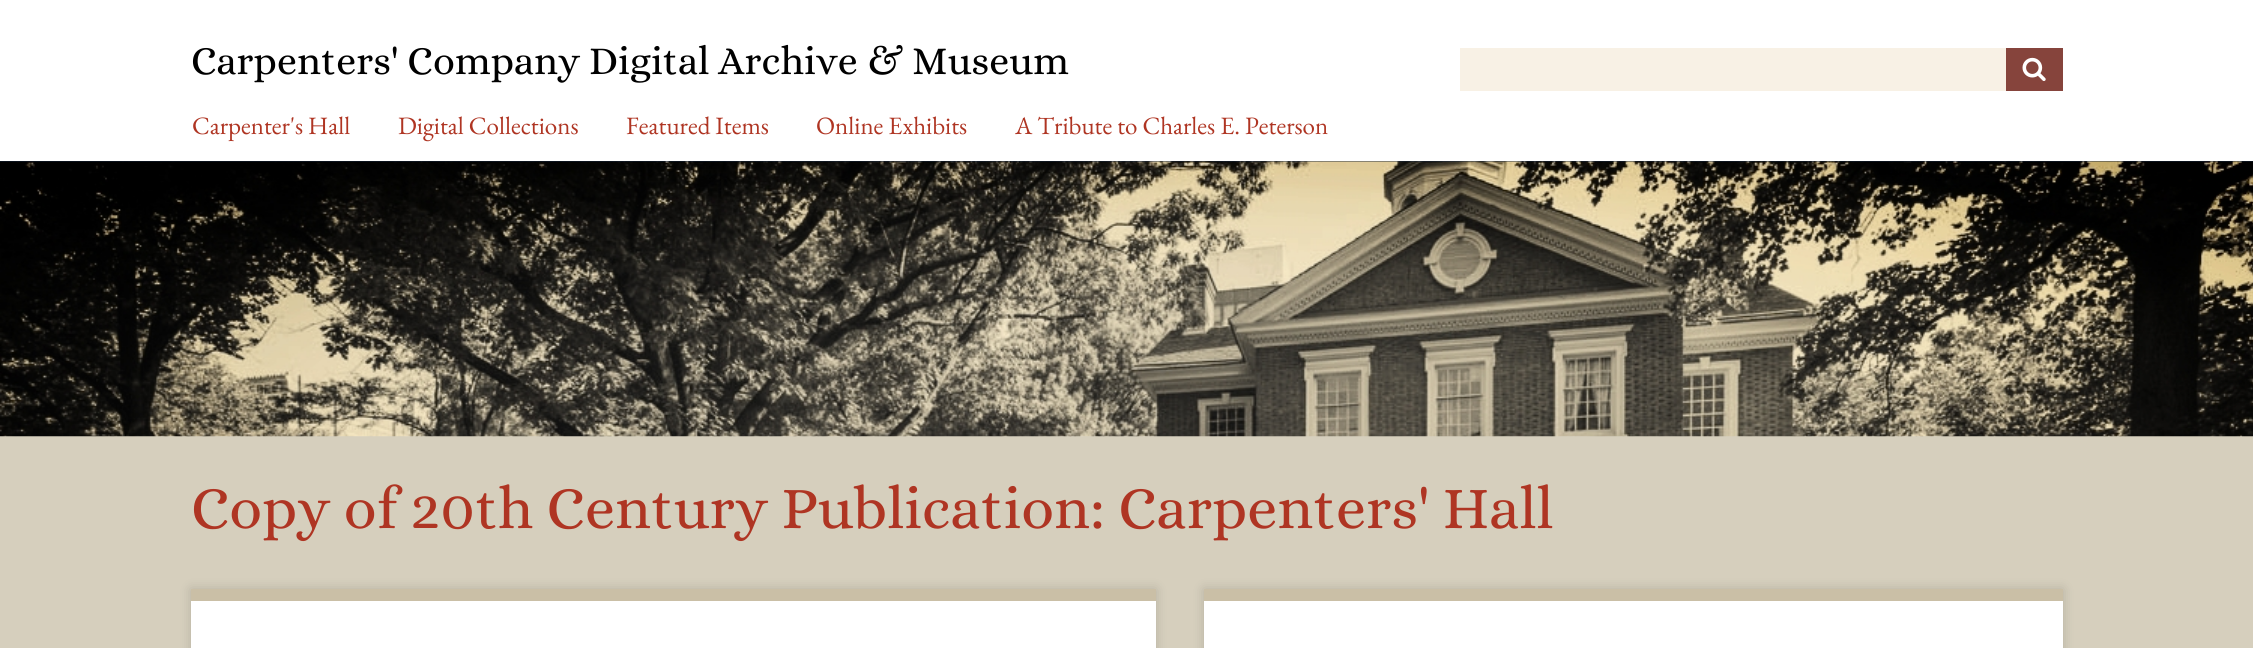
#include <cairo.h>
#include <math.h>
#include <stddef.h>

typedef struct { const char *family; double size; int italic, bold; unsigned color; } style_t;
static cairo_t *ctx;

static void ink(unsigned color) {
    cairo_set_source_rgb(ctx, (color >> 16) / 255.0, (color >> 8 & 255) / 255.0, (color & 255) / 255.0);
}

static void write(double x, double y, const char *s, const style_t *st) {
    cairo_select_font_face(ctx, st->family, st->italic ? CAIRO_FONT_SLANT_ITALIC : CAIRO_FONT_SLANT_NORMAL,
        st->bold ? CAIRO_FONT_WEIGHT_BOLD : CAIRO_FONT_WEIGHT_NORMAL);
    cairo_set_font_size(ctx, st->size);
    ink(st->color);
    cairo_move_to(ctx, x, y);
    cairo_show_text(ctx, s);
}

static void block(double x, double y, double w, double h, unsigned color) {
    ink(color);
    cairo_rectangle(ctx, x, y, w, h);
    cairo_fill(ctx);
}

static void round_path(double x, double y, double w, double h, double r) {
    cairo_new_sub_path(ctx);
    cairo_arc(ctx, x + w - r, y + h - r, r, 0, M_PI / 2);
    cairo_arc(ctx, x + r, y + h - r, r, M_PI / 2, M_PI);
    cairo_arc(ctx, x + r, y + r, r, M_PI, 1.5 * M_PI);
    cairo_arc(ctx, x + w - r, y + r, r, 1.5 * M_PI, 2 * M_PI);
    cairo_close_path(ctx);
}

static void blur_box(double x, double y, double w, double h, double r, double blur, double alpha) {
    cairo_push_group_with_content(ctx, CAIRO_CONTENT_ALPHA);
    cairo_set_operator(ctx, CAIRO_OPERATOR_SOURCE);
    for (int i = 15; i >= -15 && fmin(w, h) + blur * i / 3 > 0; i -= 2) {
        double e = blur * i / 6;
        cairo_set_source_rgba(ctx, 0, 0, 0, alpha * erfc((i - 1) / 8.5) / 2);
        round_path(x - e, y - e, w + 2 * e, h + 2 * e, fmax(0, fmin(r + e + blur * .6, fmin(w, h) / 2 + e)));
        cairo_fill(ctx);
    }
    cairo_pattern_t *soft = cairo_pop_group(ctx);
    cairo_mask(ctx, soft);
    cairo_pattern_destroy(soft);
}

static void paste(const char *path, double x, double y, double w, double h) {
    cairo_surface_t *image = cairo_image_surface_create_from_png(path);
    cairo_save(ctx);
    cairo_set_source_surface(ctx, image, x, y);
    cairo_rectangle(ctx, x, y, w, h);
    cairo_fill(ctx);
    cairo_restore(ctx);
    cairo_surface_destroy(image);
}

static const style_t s1 = {"Alice", 40, 0, 0, 0x000000};
static const style_t s2 = {"EB Garamond", 25, 0, 0, 0xaf3523};
static const style_t s3 = {"Alice", 60, 0, 0, 0xaf3523};

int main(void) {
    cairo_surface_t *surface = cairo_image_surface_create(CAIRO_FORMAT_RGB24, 2253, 648);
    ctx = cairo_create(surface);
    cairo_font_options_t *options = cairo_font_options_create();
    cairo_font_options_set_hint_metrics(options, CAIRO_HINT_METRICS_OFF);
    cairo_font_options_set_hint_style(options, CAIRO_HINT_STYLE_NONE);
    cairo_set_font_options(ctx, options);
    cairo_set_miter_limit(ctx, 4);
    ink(0x18283f);
    cairo_paint(ctx);
    block(0, 0, 2253, 161, 0xffffff);
    write(191, 74, "Carpenters' Company Digital Archive & Museum", &s1);
    block(1460, 48, 546, 43, 0xf8f1e5);
    block(2006, 48, 57, 43, 0x86443c);
    paste("pic1.png", 2022, 57, 24, 24);
    write(192, 134, "Carpenter's Hall", &s2);
    write(398, 134, "Digital Collections", &s2);
    write(626, 134, "Featured Items", &s2);
    write(816, 134, "Online Exhibits", &s2);
    write(1015, 134, "A Tribute to Charles E. Peterson", &s2);
    block(0, 436, 2253, 212, 0xd6cfbd);
    paste("pic2.png", 0, 161, 2253, 276);
    write(191, 528, "Copy of 20th Century Publication: Carpenters' Hall", &s3);
    ink(0x000000);
    blur_box(191, 589, 965, 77, 0, 6, 0.15);
    block(191, 601, 965, 47, 0xffffff);
    block(191, 589, 965, 12, 0xcabfa6);
    ink(0x000000);
    blur_box(1204, 589, 859, 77, 0, 6, 0.15);
    block(1204, 601, 859, 47, 0xffffff);
    block(1204, 589, 859, 12, 0xcabfa6);
    cairo_surface_write_to_png(surface, "screenshot.png");
    cairo_font_options_destroy(options);
    cairo_destroy(ctx);
    cairo_surface_destroy(surface);
    return 0;
}
